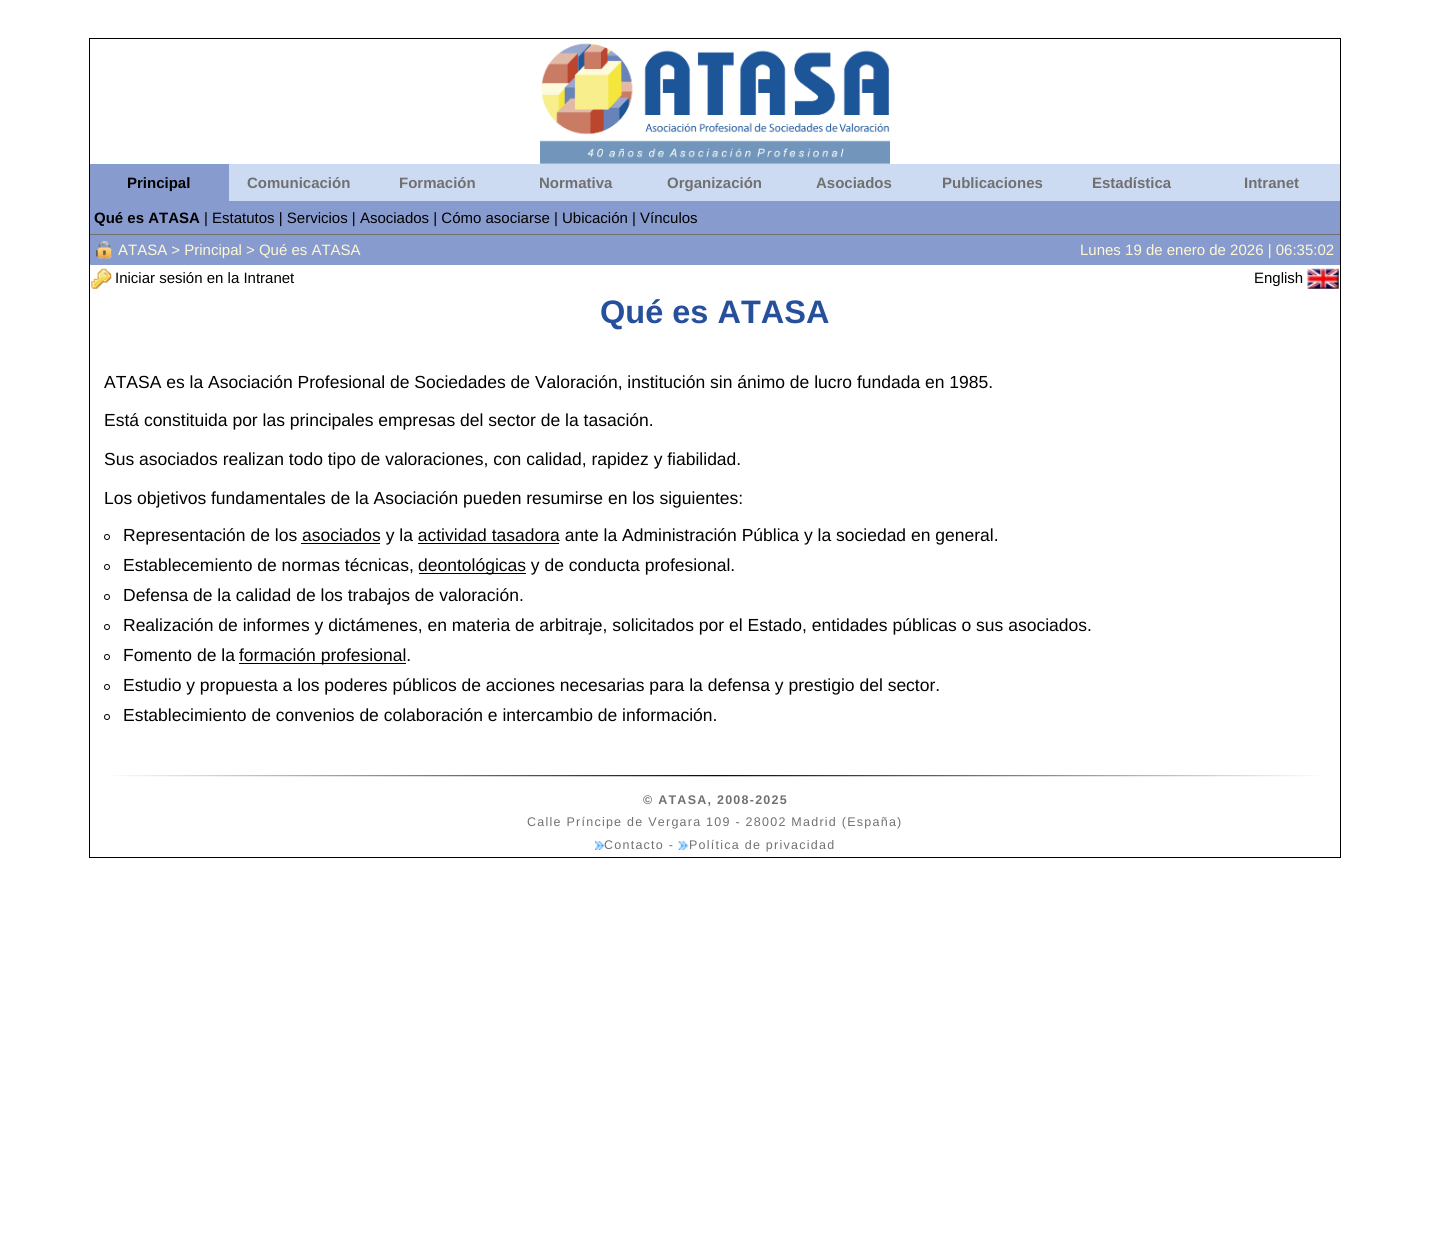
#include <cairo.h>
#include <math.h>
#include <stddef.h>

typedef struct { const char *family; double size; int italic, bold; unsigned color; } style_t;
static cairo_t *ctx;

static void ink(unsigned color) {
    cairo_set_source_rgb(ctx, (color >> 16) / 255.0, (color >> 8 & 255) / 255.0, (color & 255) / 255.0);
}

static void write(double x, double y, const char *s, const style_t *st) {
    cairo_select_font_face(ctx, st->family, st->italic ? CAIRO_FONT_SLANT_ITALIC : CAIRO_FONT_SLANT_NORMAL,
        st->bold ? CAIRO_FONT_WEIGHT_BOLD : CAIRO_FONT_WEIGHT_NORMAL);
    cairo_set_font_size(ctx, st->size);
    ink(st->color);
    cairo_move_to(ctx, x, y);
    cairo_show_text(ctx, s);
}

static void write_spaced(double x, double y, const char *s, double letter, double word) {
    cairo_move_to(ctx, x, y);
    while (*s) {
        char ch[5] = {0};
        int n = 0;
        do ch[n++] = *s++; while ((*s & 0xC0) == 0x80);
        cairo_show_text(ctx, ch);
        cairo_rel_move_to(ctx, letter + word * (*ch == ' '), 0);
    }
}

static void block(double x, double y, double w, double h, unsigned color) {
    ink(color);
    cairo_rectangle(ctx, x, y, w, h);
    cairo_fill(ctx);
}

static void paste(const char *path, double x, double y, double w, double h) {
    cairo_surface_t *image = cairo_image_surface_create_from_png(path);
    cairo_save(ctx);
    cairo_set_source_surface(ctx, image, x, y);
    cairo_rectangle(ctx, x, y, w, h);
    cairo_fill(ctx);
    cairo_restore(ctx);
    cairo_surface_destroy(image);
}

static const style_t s1 = {"Liberation Sans", 15, 0, 1, 0x000000};
static const style_t s2 = {"Liberation Sans", 15, 0, 1, 0x707070};
static const style_t s3 = {"Liberation Sans", 15, 0, 0, 0x000000};
static const style_t s4 = {"Liberation Sans", 15, 0, 0, 0xfff8d4};
static const style_t s5 = {"Liberation Sans", 32.5, 0, 1, 0x26509c};
static const style_t s6 = {"Liberation Sans", 17.5, 0, 0, 0x000000};

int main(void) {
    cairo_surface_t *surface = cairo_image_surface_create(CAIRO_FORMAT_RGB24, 1429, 1251);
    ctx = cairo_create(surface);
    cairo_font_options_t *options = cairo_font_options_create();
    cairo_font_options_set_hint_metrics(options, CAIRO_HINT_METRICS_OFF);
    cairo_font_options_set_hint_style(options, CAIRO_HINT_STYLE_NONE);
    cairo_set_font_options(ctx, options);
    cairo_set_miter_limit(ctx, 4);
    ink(0xffffff);
    cairo_paint(ctx);
    cairo_rectangle(ctx, 89.5, 38.5, 1251, 819);
    ink(0x000000);
    cairo_set_line_width(ctx, 1);
    cairo_stroke(ctx);
    paste("pic1.png", 540, 43, 350, 121);
    block(90, 164, 139, 37, 0x879bce);
    write(127, 188, "Principal", &s1);
    block(229, 164, 1111, 37, 0xccdaf2);
    write(247, 188, "Comunicación", &s2);
    write(399, 188, "Formación", &s2);
    write(539, 188, "Normativa", &s2);
    write(667, 188, "Organización", &s2);
    write(816, 188, "Asociados", &s2);
    write(942, 188, "Publicaciones", &s2);
    write(1092, 188, "Estadística", &s2);
    write(1244, 188, "Intranet", &s2);
    block(90, 201, 1250, 33, 0x879bce);
    write(94, 223, "Qué es ATASA", &s1);
    write(204, 223, "| Estatutos | Servicios | Asociados | Cómo asociarse | Ubicación | Vínculos", &s3);
    block(90, 235, 1250, 30, 0x879bce);
    block(90, 234, 1250, 1, 0x707070);
    paste("pic2.png", 96, 241, 16, 18);
    write(118, 255, "ATASA > Principal > Qué es ATASA", &s4);
    write(1080, 255, "Lunes 19 de enero de 2026 | 06:35:02", &s4);
    paste("pic3.png", 91, 268, 21, 21);
    write(115, 283, "Iniciar sesión en la Intranet", &s3);
    write(1254, 283, "English", &s3);
    paste("pic4.png", 1307, 268, 32, 21);
    write(600, 323, "Qué es ATASA", &s5);
    write(104, 388, "ATASA es la Asociación Profesional de Sociedades de Valoración, institución sin ánimo de lucro fundada en 1985.", &s6);
    write(104, 426, "Está constituida por las principales empresas del sector de la tasación.", &s6);
    write(104, 465, "Sus asociados realizan todo tipo de valoraciones, con calidad, rapidez y fiabilidad.", &s6);
    write(104, 504, "Los objetivos fundamentales de la Asociación pueden resumirse en los siguientes:", &s6);
    cairo_new_path(ctx);
    cairo_arc(ctx, 107, 537, 2.5, 0, 2 * M_PI);
    cairo_stroke(ctx);
    write(123, 541, "Representación de los asociados y la actividad tasadora ante la Administración Pública y la sociedad en general.", &s6);
    block(301, 543, 79, 1, 0x000000);
    block(418, 543, 141, 1, 0x000000);
    cairo_new_path(ctx);
    cairo_arc(ctx, 107, 567, 2.5, 0, 2 * M_PI);
    cairo_stroke(ctx);
    write(123, 571, "Establecemiento de normas técnicas,", &s6);
    block(419, 573, 107, 1, 0x000000);
    write(418, 571, "deontológicas y de conducta profesional.", &s6);
    cairo_new_path(ctx);
    cairo_arc(ctx, 107, 597, 2.5, 0, 2 * M_PI);
    cairo_stroke(ctx);
    write(123, 601, "Defensa de la calidad de los trabajos de valoración.", &s6);
    cairo_new_path(ctx);
    cairo_arc(ctx, 107, 627, 2.5, 0, 2 * M_PI);
    cairo_stroke(ctx);
    write(123, 631, "Realización de informes y dictámenes, en materia de arbitraje, solicitados por el Estado, entidades públicas o sus asociados.", &s6);
    cairo_new_path(ctx);
    cairo_arc(ctx, 107, 657, 2.5, 0, 2 * M_PI);
    cairo_stroke(ctx);
    write(123, 661, "Fomento de la", &s6);
    block(239, 663, 167, 1, 0x000000);
    write(239, 661, "formación profesional.", &s6);
    cairo_new_path(ctx);
    cairo_arc(ctx, 107, 687, 2.5, 0, 2 * M_PI);
    cairo_stroke(ctx);
    write(123, 691, "Estudio y propuesta a los poderes públicos de acciones necesarias para la defensa y prestigio del sector.", &s6);
    cairo_new_path(ctx);
    cairo_arc(ctx, 107, 717, 2.5, 0, 2 * M_PI);
    cairo_stroke(ctx);
    write(123, 721, "Establecimiento de convenios de colaboración e intercambio de información.", &s6);
    paste("pic5.png", 112, 775, 1207, 2);
    cairo_select_font_face(ctx, "Liberation Sans", CAIRO_FONT_SLANT_NORMAL, CAIRO_FONT_WEIGHT_BOLD);
    cairo_set_font_size(ctx, 12.5);
    ink(0x707070);
    write_spaced(643, 804, "© ATASA, 2008-2025", 1.25, 0);
    cairo_select_font_face(ctx, "Liberation Sans", CAIRO_FONT_SLANT_NORMAL, CAIRO_FONT_WEIGHT_NORMAL);
    write_spaced(527, 826, "Calle Príncipe de Vergara 109 - 28002 Madrid (España)", 1.25, 0);
    paste("pic6.png", 595, 841, 10, 9);
    write_spaced(604, 849, "Contacto -", 1.25, 0);
    paste("pic7.png", 678, 841, 11, 9);
    write_spaced(689, 849, "Política de privacidad", 1.25, 0);
    cairo_surface_write_to_png(surface, "screenshot.png");
    cairo_font_options_destroy(options);
    cairo_destroy(ctx);
    cairo_surface_destroy(surface);
    return 0;
}
